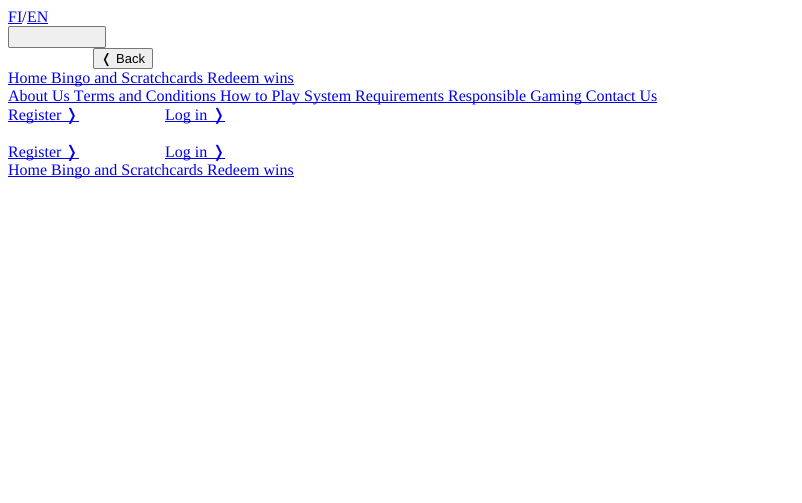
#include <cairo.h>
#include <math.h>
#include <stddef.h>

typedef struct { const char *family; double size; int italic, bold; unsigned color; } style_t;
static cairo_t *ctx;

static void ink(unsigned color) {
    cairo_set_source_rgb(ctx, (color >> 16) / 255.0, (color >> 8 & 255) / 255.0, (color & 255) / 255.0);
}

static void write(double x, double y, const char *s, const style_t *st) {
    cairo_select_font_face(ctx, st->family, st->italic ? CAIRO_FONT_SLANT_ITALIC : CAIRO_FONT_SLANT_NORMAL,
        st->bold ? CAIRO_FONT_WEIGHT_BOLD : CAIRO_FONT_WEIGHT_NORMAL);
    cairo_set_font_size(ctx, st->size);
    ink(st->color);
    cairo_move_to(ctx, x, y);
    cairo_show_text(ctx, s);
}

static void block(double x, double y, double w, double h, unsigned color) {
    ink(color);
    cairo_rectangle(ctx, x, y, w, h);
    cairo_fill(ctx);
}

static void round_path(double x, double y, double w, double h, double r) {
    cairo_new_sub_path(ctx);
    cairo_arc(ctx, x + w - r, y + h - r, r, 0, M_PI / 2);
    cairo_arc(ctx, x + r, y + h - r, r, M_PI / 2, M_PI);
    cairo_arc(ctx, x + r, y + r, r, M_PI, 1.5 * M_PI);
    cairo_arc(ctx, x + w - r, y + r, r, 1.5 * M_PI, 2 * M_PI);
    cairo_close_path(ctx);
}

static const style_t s1 = {"Liberation Serif", 16, 0, 0, 0x0000ee};
static const style_t s2 = {"Liberation Serif", 16, 0, 0, 0x000000};
static const style_t s3 = {"DejaVu Sans", 13, 0, 0, 0x000000};
static const style_t s4 = {"Liberation Sans", 13, 0, 0, 0x000000};
static const style_t s5 = {"DejaVu Sans", 16, 0, 0, 0x0000ee};

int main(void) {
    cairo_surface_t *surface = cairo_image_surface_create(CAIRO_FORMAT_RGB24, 802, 503);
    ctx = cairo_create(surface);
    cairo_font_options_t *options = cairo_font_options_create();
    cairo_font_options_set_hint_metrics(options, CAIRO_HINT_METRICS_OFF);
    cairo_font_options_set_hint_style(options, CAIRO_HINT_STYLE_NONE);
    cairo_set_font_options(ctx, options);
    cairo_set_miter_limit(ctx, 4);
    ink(0xffffff);
    cairo_paint(ctx);
    write(8, 22, "FI", &s1);
    block(8, 23, 14, 1, 0x0000ee);
    write(22, 22, "/", &s2);
    write(27, 22, "EN", &s1);
    block(27, 23, 21, 1, 0x0000ee);
    ink(0xefefef);
    round_path(8.5, 26.5, 97, 21, 1.5);
    cairo_fill_preserve(ctx);
    ink(0x767676);
    cairo_set_line_width(ctx, 1);
    cairo_stroke(ctx);
    ink(0xefefef);
    round_path(93.5, 48.5, 59, 20, 1.5);
    cairo_fill_preserve(ctx);
    ink(0x767676);
    cairo_stroke(ctx);
    write(101, 63, "❬", &s3);
    write(116, 63, "Back", &s4);
    block(8, 84, 286, 1, 0x0000ee);
    write(8, 83, "Home Bingo and Scratchcards Redeem wins", &s1);
    block(8, 102, 649, 1, 0x0000ee);
    write(8, 101, "About Us Terms and Conditions How to Play System Requirements Responsible Gaming Contact Us", &s1);
    block(8, 121, 71, 1, 0x0000ee);
    write(8, 120, "Register", &s1);
    write(65, 120, "❭", &s5);
    block(165, 121, 60, 1, 0x0000ee);
    write(165, 120, "Log in", &s1);
    write(212, 120, "❭", &s5);
    block(8, 158, 71, 1, 0x0000ee);
    write(8, 157, "Register", &s1);
    write(65, 157, "❭", &s5);
    block(165, 158, 60, 1, 0x0000ee);
    write(165, 157, "Log in", &s1);
    write(212, 157, "❭", &s5);
    block(8, 176, 286, 1, 0x0000ee);
    write(8, 175, "Home Bingo and Scratchcards Redeem wins", &s1);
    cairo_surface_write_to_png(surface, "screenshot.png");
    cairo_font_options_destroy(options);
    cairo_destroy(ctx);
    cairo_surface_destroy(surface);
    return 0;
}
